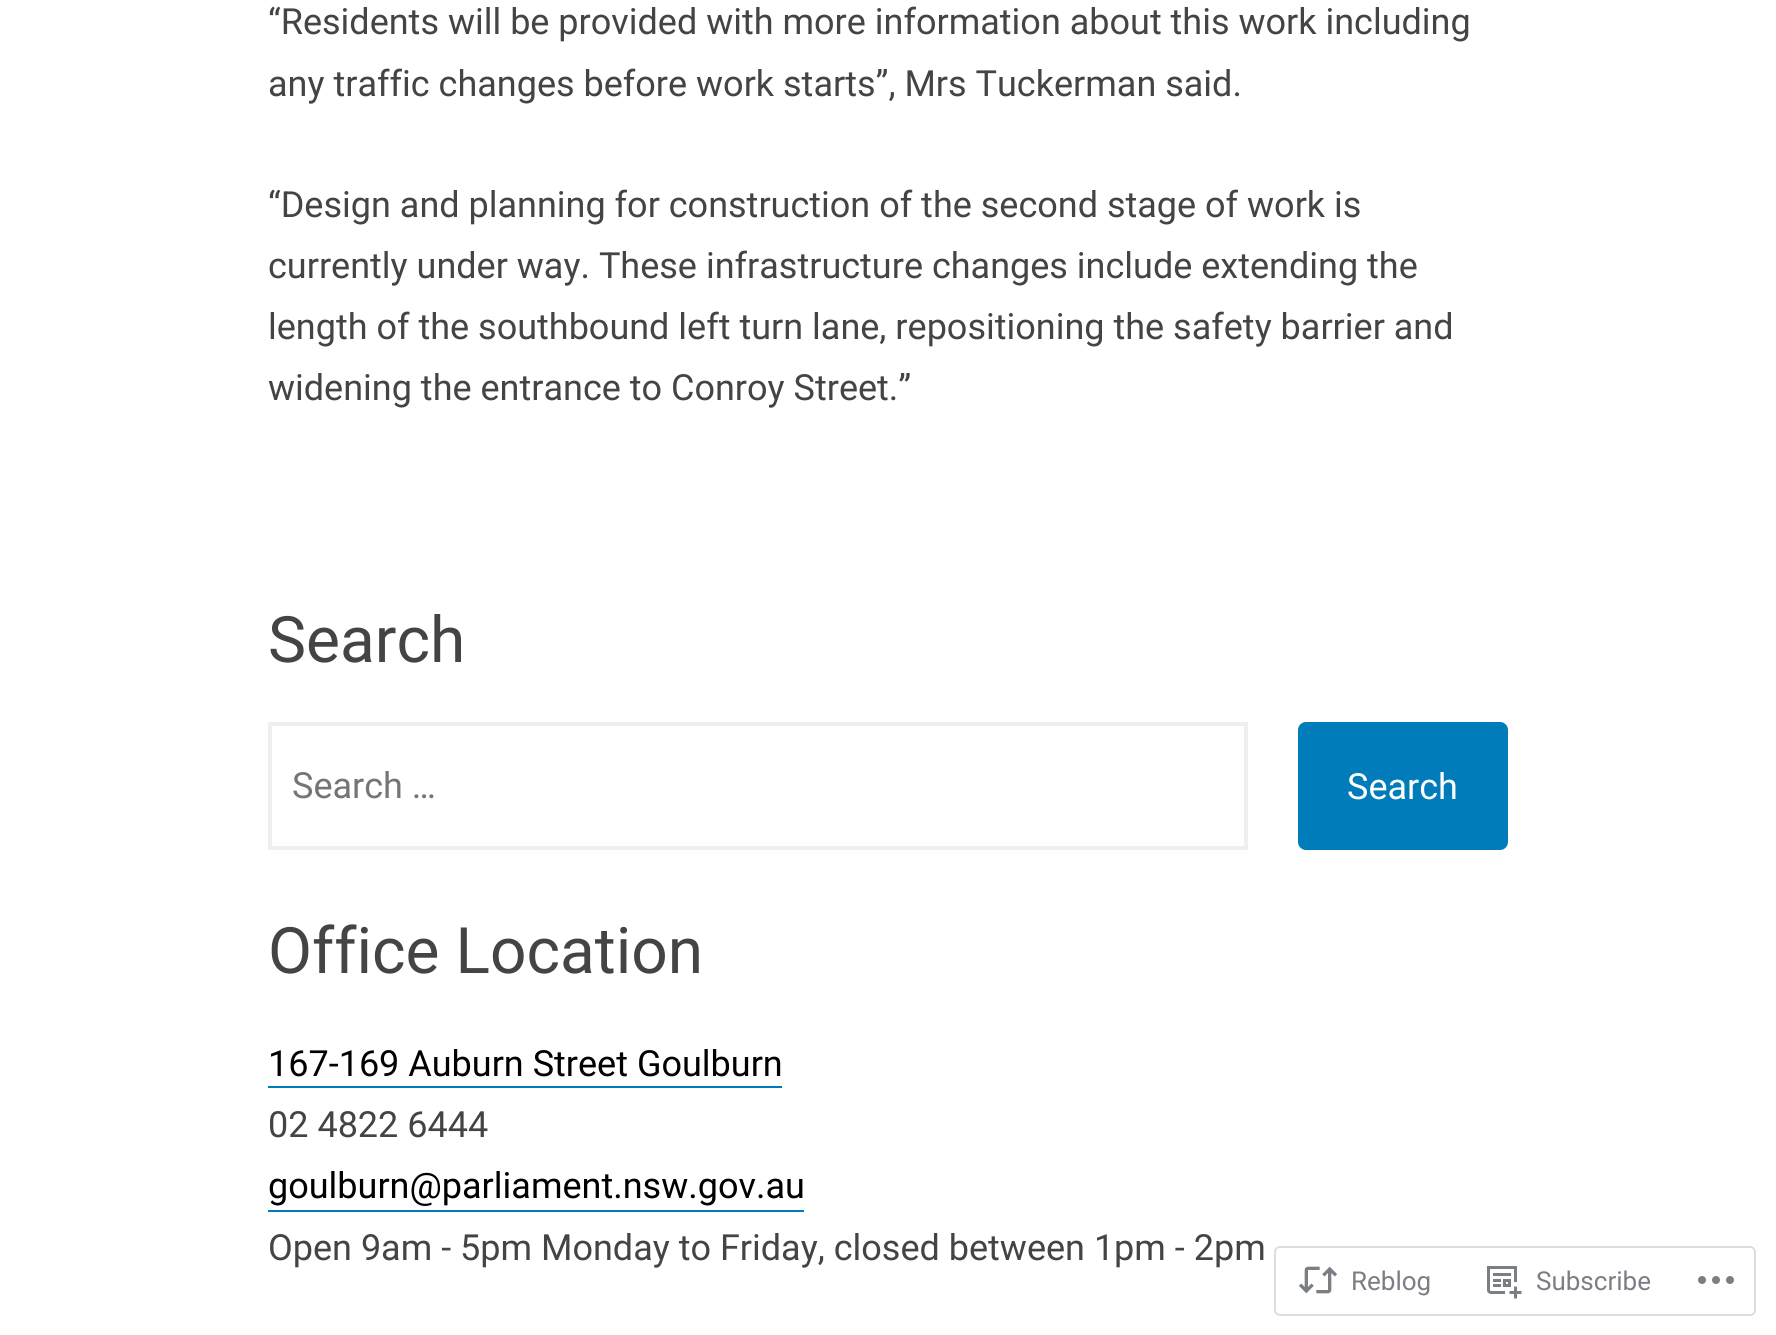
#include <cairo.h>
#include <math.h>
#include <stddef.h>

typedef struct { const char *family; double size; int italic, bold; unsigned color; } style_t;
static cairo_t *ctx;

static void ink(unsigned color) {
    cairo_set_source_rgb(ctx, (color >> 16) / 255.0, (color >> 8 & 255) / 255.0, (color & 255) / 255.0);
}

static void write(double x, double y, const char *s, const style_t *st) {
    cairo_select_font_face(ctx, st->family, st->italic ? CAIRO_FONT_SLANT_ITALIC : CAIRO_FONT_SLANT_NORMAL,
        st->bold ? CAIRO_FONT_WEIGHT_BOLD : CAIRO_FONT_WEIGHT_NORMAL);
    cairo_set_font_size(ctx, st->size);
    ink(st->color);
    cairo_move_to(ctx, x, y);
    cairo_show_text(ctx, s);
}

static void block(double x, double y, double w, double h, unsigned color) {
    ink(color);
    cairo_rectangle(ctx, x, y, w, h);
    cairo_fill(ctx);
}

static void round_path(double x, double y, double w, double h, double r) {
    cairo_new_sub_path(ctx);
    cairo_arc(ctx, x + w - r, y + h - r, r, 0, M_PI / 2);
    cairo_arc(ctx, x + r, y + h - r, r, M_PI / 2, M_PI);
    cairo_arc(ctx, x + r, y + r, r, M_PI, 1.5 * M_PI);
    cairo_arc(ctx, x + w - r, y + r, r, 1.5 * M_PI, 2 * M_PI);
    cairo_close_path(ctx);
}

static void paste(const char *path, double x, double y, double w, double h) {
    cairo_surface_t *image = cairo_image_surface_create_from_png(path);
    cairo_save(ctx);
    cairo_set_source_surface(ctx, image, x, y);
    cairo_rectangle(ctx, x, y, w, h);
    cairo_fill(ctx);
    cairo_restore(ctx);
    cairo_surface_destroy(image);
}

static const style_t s1 = {"Roboto", 36, 0, 0, 0x444444};
static const style_t s2 = {"Roboto", 64, 0, 0, 0x444444};
static const style_t s3 = {"Roboto", 36, 0, 0, 0x757575};
static const style_t s4 = {"Roboto", 36, 0, 0, 0xffffff};
static const style_t s5 = {"Roboto", 36, 0, 0, 0x000000};
static const style_t s6 = {"Roboto", 26, 0, 0, 0x7b7f85};

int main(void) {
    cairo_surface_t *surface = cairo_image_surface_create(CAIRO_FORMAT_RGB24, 1776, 1335);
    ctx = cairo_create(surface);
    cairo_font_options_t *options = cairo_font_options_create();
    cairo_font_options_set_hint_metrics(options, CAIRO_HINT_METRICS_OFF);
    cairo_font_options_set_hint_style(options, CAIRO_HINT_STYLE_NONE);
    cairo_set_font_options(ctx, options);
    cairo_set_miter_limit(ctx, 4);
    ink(0xffffff);
    cairo_paint(ctx);
    write(268, 34, "“Residents will be provided with more information about this work including", &s1);
    write(268, 96, "any traffic changes before work starts”, Mrs Tuckerman said.", &s1);
    write(268, 217, "“Design and planning for construction of the second stage of work is", &s1);
    write(268, 278, "currently under way. These infrastructure changes include extending the", &s1);
    write(268, 339, "length of the southbound left turn lane, repositioning the safety barrier and", &s1);
    write(268, 400, "widening the entrance to Conroy Street.”", &s1);
    write(268, 662, "Search", &s2);
    cairo_rectangle(ctx, 270, 724, 976, 124);
    ink(0xefefef);
    cairo_set_line_width(ctx, 4);
    cairo_stroke(ctx);
    write(292, 798, "Search …", &s3);
    ink(0x007cba);
    round_path(1298, 722, 210, 128, 8);
    cairo_fill(ctx);
    write(1347, 799, "Search", &s4);
    write(268, 973, "Office Location", &s2);
    write(268, 1076, "167-169 Auburn Street Goulburn", &s5);
    block(268, 1086, 514, 2, 0x007cba);
    write(268, 1137, "02 4822 6444", &s1);
    write(268, 1198, "goulburn@parliament.nsw.gov.au", &s5);
    block(268, 1210, 536, 2, 0x007cba);
    write(268, 1260, "Open 9am - 5pm Monday to Friday, closed between 1pm - 2pm", &s1);
    round_path(1275, 1247, 480, 68, 5);
    ink(0xdddddf);
    cairo_set_line_width(ctx, 2);
    cairo_stroke(ctx);
    paste("pic1.png", 1298, 1266, 40, 28);
    write(1351, 1290, "Reblog", &s6);
    paste("pic2.png", 1487, 1266, 35, 33);
    write(1536, 1290, "Subscribe", &s6);
    paste("pic3.png", 1698, 1276, 36, 8);
    cairo_surface_write_to_png(surface, "screenshot.png");
    cairo_font_options_destroy(options);
    cairo_destroy(ctx);
    cairo_surface_destroy(surface);
    return 0;
}
